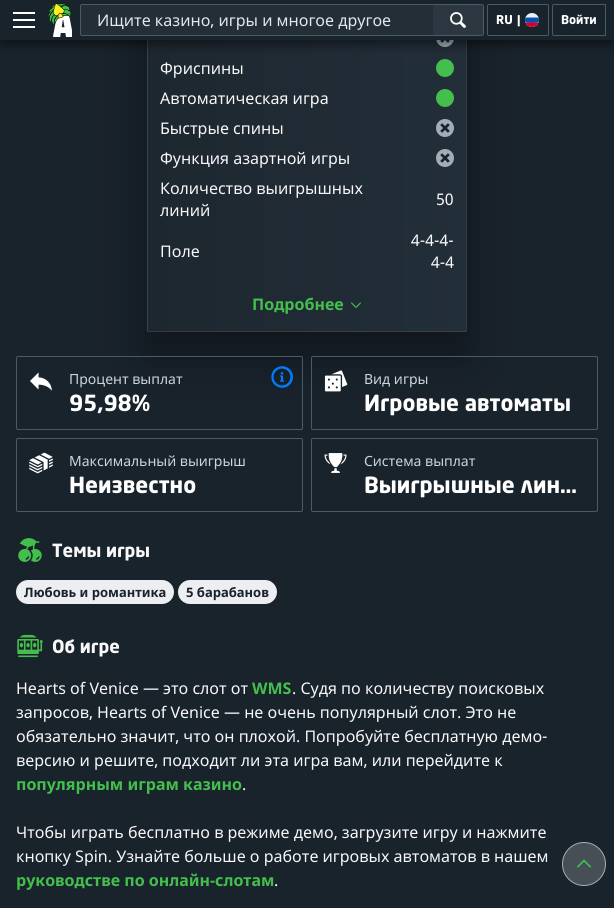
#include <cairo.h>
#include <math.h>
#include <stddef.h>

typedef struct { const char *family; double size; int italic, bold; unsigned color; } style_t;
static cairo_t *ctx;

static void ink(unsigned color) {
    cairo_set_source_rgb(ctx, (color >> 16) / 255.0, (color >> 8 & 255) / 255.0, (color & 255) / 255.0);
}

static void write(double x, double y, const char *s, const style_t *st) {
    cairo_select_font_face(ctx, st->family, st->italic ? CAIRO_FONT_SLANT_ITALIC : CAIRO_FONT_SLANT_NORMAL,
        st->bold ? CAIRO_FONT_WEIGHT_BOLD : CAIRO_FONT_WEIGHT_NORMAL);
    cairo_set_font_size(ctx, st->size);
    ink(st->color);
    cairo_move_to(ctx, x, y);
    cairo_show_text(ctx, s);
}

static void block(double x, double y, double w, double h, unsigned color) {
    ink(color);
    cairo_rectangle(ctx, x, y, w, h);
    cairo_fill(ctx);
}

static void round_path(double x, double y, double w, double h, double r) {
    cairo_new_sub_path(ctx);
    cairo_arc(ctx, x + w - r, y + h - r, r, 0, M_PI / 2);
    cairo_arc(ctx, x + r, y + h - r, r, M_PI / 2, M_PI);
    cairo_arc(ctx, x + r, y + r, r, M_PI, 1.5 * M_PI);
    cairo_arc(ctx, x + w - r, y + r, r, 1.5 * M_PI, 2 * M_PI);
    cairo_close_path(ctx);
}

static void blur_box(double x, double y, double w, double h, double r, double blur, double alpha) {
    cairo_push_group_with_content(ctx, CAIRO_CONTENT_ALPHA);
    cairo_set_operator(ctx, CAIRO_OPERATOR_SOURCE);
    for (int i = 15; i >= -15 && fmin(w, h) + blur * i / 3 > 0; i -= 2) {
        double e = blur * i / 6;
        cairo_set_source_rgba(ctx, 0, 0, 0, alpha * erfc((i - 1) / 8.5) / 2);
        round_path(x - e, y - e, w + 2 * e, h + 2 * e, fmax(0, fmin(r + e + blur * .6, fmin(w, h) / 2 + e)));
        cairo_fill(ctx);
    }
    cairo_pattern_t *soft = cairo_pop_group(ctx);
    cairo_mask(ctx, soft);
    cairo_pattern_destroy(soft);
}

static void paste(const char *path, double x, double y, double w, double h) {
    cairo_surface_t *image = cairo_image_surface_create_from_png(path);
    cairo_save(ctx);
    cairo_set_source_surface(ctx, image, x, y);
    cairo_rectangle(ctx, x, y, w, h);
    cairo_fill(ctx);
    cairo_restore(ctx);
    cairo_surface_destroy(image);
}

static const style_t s1 = {"Noto Sans", 16, 0, 0, 0xe3e7ef};
static const style_t s2 = {"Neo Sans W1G", 12, 0, 1, 0xffffff};
static const style_t s3 = {"Noto Sans", 16, 0, 0, 0xf8f8fa};
static const style_t s4 = {"Noto Sans", 16, 0, 1, 0x44be4c};
static const style_t s5 = {"Neo Sans W1G", 18, 0, 1, 0xf8f8fa};
static const style_t s6 = {"Noto Sans", 13, 0, 1, 0x19232c};
static const style_t s7 = {"Noto Sans", 14, 0, 0, 0xcdd6dd};
static const style_t s8 = {"Neo Sans W1G", 22, 0, 1, 0xffffff};

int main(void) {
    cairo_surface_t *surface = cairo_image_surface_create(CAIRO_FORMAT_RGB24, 614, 908);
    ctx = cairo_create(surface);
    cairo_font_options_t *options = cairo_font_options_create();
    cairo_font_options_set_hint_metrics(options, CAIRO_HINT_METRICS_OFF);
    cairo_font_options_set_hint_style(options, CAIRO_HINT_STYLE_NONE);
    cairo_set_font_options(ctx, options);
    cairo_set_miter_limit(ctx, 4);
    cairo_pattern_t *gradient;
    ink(0x19232c);
    cairo_paint(ctx);
    ink(0x000000);
    blur_box(147, -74, 320, 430, 2, 24, 0.4);
    gradient = cairo_pattern_create_linear(148, -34, -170, -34);
    cairo_pattern_add_color_stop_rgba(gradient, 0, 0.133, 0.18, 0.22, 1);
    cairo_pattern_add_color_stop_rgba(gradient, 1, 0.114, 0.153, 0.188, 1);
    cairo_set_source(ctx, gradient);
    cairo_pattern_destroy(gradient);
    cairo_rectangle(ctx, 147, 40, 1, 292);
    cairo_fill(ctx);
    gradient = cairo_pattern_create_linear(466, -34, 148, -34);
    cairo_pattern_add_color_stop_rgba(gradient, 0, 0.133, 0.18, 0.22, 1);
    cairo_pattern_add_color_stop_rgba(gradient, 1, 0.114, 0.153, 0.188, 1);
    cairo_set_source(ctx, gradient);
    cairo_pattern_destroy(gradient);
    cairo_rectangle(ctx, 148, 40, 318, 292);
    cairo_fill(ctx);
    gradient = cairo_pattern_create_linear(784, -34, 466, -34);
    cairo_pattern_add_color_stop_rgba(gradient, 0, 0.133, 0.18, 0.22, 1);
    cairo_pattern_add_color_stop_rgba(gradient, 1, 0.114, 0.153, 0.188, 1);
    cairo_set_source(ctx, gradient);
    cairo_pattern_destroy(gradient);
    cairo_rectangle(ctx, 466, 40, 1, 292);
    cairo_fill(ctx);
    round_path(147.5, -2.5, 319, 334, 1.5);
    cairo_set_source_rgba(ctx, 1, 1, 1, 0.1);
    cairo_set_line_width(ctx, 1);
    cairo_stroke(ctx);
    ink(0xa2aeb7);
    cairo_arc(ctx, 445, 38, 9, 0, 2 * M_PI);
    cairo_fill(ctx);
    paste("pic4.png", 440, 40, 10, 3);
    ink(0x44be4c);
    cairo_arc(ctx, 445, 68, 9, 0, 2 * M_PI);
    cairo_fill(ctx);
    ink(0x000000);
    blur_box(0, 5, 614, 40, 0, 5, 0.45);
    block(0, 0, 614, 40, 0x19232c);
    block(13, 12, 22, 2, 0xffffff);
    block(13, 19, 22, 2, 0xffffff);
    block(13, 26, 22, 2, 0xffffff);
    paste("pic1.png", 48, 3, 24, 34);
    ink(0x232e37);
    round_path(80.5, 4.5, 403, 31, 1.5);
    cairo_fill_preserve(ctx);
    ink(0x4a5b68);
    cairo_stroke(ctx);
    write(97, 26, "Ищите казино, игры и многое другое", &s1);
    ink(0x2c3741);
    cairo_new_path(ctx);
    cairo_move_to(ctx, 433, 5);
    cairo_line_to(ctx, 481, 5);
    cairo_curve_to(ctx, 482, 5, 483, 6, 483, 7);
    cairo_line_to(ctx, 483, 33);
    cairo_curve_to(ctx, 483, 34, 482, 35, 481, 35);
    cairo_line_to(ctx, 433, 35);
    cairo_close_path(ctx);
    cairo_fill(ctx);
    paste("pic2.png", 450, 12, 16, 16);
    round_path(487.5, 4.5, 61, 31, 1.5);
    ink(0x4a5b68);
    cairo_stroke(ctx);
    write(496, 24, "RU", &s2);
    write(517, 24, "|", &s2);
    paste("pic3.png", 525, 13, 14, 14);
    cairo_new_path(ctx);
    cairo_move_to(ctx, 554, 4.5);
    cairo_line_to(ctx, 605.5, 4.5);
    cairo_line_to(ctx, 605.5, 35.5);
    cairo_line_to(ctx, 554, 35.5);
    cairo_curve_to(ctx, 553, 35.5, 552.5, 35, 552.5, 34);
    cairo_line_to(ctx, 552.5, 6);
    cairo_curve_to(ctx, 552.5, 5, 553, 4.5, 554, 4.5);
    cairo_close_path(ctx);
    ink(0x4a5b68);
    cairo_stroke(ctx);
    write(561, 24, "Войти", &s2);
    write(160, 74, "Фриспины", &s3);
    write(160, 104, "Автоматическая игра", &s3);
    ink(0x44be4c);
    cairo_new_path(ctx);
    cairo_arc(ctx, 445, 98, 9, 0, 2 * M_PI);
    cairo_fill(ctx);
    write(160, 134, "Быстрые спины", &s3);
    ink(0xa2aeb7);
    cairo_new_path(ctx);
    cairo_arc(ctx, 445, 128, 9, 0, 2 * M_PI);
    cairo_fill(ctx);
    paste("pic5.png", 440, 123, 10, 10);
    write(160, 164, "Функция азартной игры", &s3);
    ink(0xa2aeb7);
    cairo_new_path(ctx);
    cairo_arc(ctx, 445, 158, 9, 0, 2 * M_PI);
    cairo_fill(ctx);
    paste("pic5.png", 440, 153, 10, 10);
    write(160, 194, "Количество выигрышных", &s3);
    write(160, 216, "линий", &s3);
    write(436, 205, "50", &s3);
    write(160, 257, "Поле", &s3);
    write(411, 246, "4-4-4-", &s3);
    write(431, 268, "4-4", &s3);
    write(252, 310, "Подробнее", &s4);
    paste("pic6.png", 351, 302, 10, 7);
    paste("pic7.png", 18, 538, 24, 24);
    write(52, 557, "Темы игры", &s5);
    ink(0xeceef2);
    round_path(16, 580, 158, 24, 12);
    cairo_fill(ctx);
    write(24, 597, "Любовь и романтика", &s6);
    ink(0xeceef2);
    round_path(178, 580, 99, 24, 12);
    cairo_fill(ctx);
    write(186, 597, "5 барабанов", &s6);
    round_path(16.5, 356.5, 286, 73, 1.5);
    ink(0x4a5b68);
    cairo_stroke(ctx);
    paste("pic8.png", 30, 372, 22, 19);
    write(69, 384, "Процент выплат", &s7);
    write(69, 411, "95,98%", &s8);
    paste("pic9.png", 271, 366, 22, 22);
    round_path(311.5, 356.5, 286, 73, 1.5);
    ink(0x4a5b68);
    cairo_stroke(ctx);
    paste("pic10.png", 324, 370, 24, 22);
    write(364, 384, "Вид игры", &s7);
    write(364, 411, "Игровые автоматы", &s8);
    round_path(16.5, 438.5, 286, 73, 1.5);
    ink(0x4a5b68);
    cairo_stroke(ctx);
    paste("pic11.png", 29, 452, 24, 22);
    write(69, 466, "Максимальный выигрыш", &s7);
    write(69, 493, "Неизвестно", &s8);
    round_path(311.5, 438.5, 286, 73, 1.5);
    ink(0x4a5b68);
    cairo_stroke(ctx);
    paste("pic12.png", 324, 453, 23, 20);
    write(364, 466, "Система выплат", &s7);
    write(364, 493, "Выигрышные лин…", &s8);
    paste("pic13.png", 17, 634, 26, 24);
    write(52, 653, "Об игре", &s5);
    write(16, 694, "Hearts of Venice — это слот от", &s3);
    write(252, 694, "WMS", &s4);
    write(292, 694, ". Судя по количеству поисковых", &s3);
    write(16, 718, "запросов, Hearts of Venice — не очень популярный слот. Это не", &s3);
    write(16, 742, "обязательно значит, что он плохой. Попробуйте бесплатную демо-", &s3);
    write(16, 766, "версию и решите, подходит ли эта игра вам, или перейдите к", &s3);
    write(16, 790, "популярным играм казино", &s4);
    write(242, 790, ".", &s3);
    write(16, 838, "Чтобы играть бесплатно в режиме демо, загрузите игру и нажмите", &s3);
    write(16, 862, "кнопку Spin. Узнайте больше о работе игровых автоматов в нашем", &s3);
    write(16, 886, "руководстве по онлайн-слотам", &s4);
    write(274, 886, ".", &s3);
    ink(0x474f56);
    cairo_new_path(ctx);
    cairo_arc(ctx, 584, 864, 21.5, 0, 2 * M_PI);
    cairo_fill_preserve(ctx);
    ink(0xa2aeb7);
    cairo_stroke(ctx);
    paste("pic14.png", 576, 859, 16, 9);
    cairo_surface_write_to_png(surface, "screenshot.png");
    cairo_font_options_destroy(options);
    cairo_destroy(ctx);
    cairo_surface_destroy(surface);
    return 0;
}
